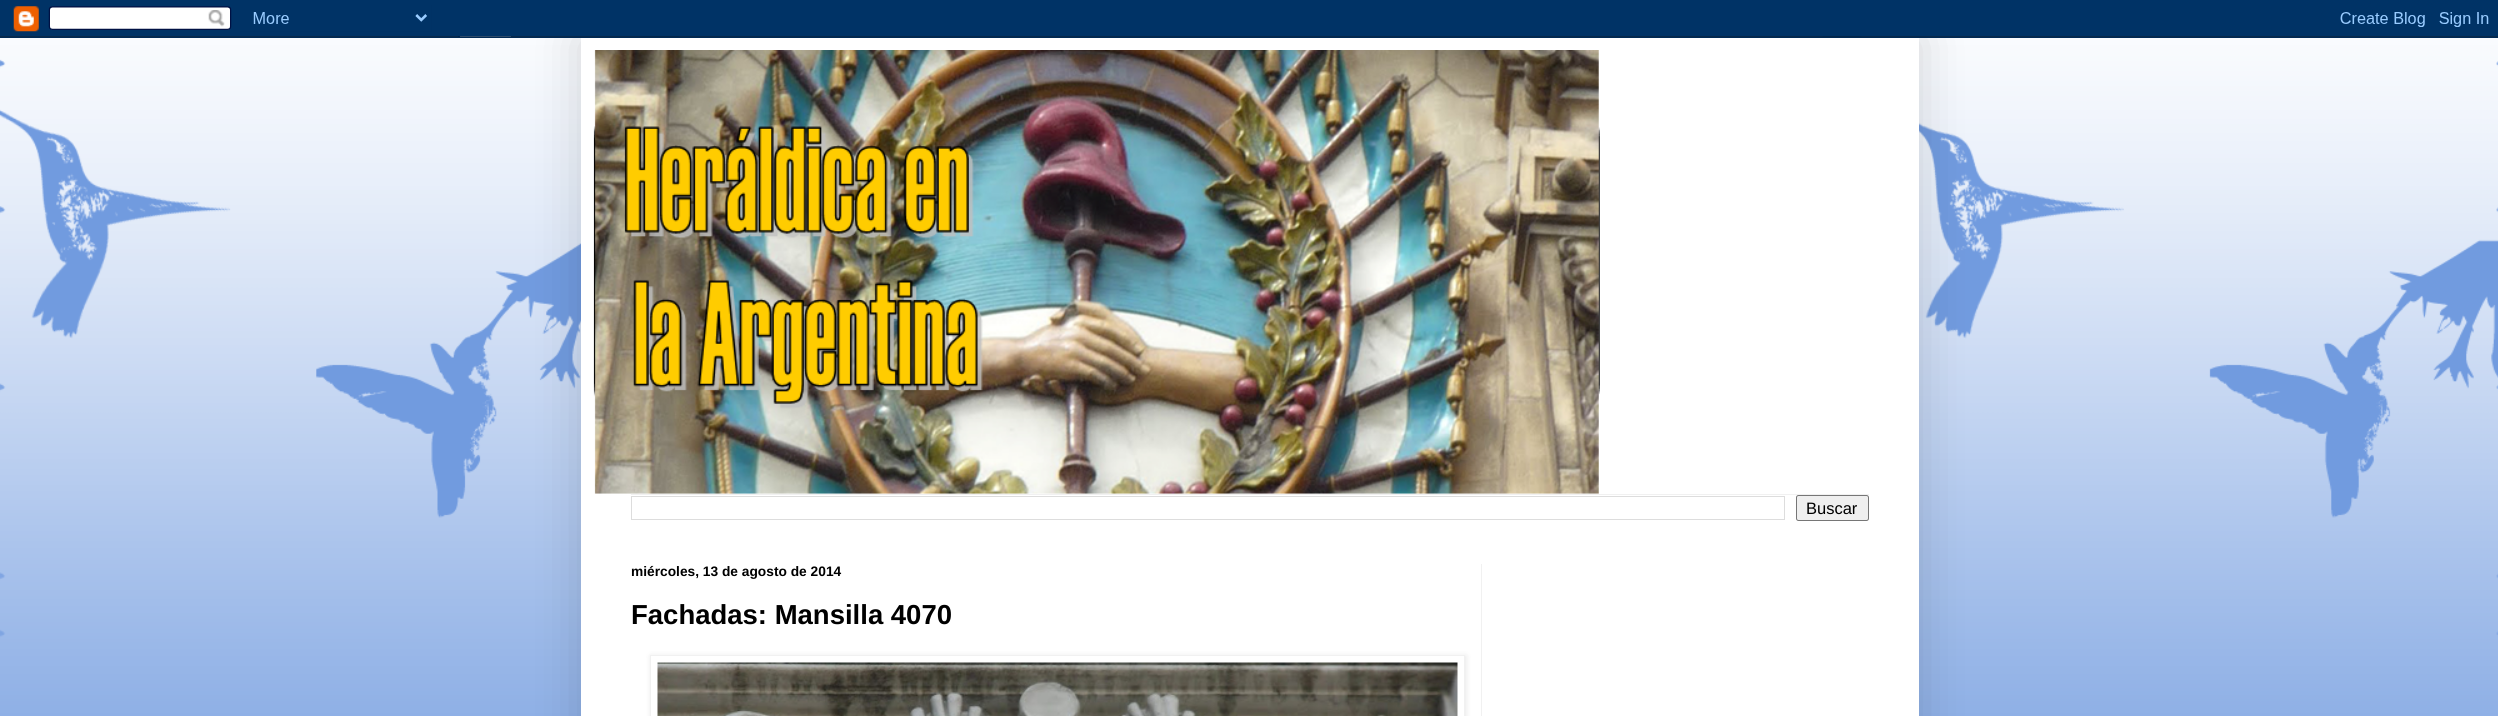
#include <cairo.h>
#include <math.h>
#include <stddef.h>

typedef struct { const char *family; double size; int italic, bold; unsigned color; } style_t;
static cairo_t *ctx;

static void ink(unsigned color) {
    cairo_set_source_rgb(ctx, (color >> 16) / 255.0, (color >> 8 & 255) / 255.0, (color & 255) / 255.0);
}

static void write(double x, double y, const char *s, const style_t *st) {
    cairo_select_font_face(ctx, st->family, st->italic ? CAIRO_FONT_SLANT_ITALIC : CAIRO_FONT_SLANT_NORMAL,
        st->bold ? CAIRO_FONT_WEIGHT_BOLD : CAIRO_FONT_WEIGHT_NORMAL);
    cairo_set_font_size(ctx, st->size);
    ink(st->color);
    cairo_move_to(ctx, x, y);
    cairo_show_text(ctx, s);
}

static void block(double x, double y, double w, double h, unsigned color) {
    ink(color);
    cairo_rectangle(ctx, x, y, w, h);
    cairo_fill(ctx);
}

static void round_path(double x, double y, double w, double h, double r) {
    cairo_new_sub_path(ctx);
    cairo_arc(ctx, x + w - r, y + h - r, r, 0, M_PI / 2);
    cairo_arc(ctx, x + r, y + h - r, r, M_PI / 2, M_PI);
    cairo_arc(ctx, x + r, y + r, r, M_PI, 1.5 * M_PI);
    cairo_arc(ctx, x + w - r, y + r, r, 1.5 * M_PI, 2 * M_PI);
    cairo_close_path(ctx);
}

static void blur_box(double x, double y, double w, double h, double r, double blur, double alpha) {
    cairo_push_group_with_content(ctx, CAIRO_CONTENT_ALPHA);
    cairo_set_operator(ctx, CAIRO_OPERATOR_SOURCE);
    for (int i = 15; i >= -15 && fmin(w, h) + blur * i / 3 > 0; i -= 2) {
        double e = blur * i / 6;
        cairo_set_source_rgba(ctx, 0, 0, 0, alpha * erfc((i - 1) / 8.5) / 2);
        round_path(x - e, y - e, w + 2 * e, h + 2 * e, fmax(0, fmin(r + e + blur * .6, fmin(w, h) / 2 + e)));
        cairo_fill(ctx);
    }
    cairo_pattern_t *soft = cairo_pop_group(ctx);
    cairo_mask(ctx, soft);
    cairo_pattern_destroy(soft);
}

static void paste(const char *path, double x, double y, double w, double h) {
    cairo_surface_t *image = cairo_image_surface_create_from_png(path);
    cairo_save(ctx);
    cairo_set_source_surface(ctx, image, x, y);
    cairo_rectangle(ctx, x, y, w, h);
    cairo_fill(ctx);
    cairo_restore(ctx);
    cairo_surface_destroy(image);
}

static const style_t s1 = {"Liberation Sans", 16.5, 0, 0, 0x000000};
static const style_t s2 = {"Liberation Sans", 13.75, 0, 1, 0x000000};
static const style_t s3 = {"Liberation Sans", 27.5, 0, 1, 0x000000};

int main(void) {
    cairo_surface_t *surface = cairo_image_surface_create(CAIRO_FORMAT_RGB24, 2498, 716);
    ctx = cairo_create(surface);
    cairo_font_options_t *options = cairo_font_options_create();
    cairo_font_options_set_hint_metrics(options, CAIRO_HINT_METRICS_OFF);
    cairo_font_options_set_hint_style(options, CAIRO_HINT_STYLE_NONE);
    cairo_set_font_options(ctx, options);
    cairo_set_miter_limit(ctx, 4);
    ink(0x719bdf);
    cairo_paint(ctx);
    paste("pic1.png", 0, 36, 2498, 680);
    ink(0x000000);
    blur_box(581, 38, 1338, 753, 0, 25, 0.15);
    paste("pic2.png", 0, 0, 2498, 38);
    block(581, 38, 1338, 678, 0xffffff);
    paste("pic3.png", 593, 50, 1007, 444);
    block(631, 494, 1238, 1, 0xf1f1f1);
    cairo_rectangle(ctx, 631.5, 496.5, 1153, 23);
    ink(0xdddddd);
    cairo_set_line_width(ctx, 1);
    cairo_stroke(ctx);
    ink(0xefefef);
    round_path(1796.5, 495.5, 72, 25, 2);
    cairo_fill_preserve(ctx);
    ink(0x767676);
    cairo_stroke(ctx);
    write(1806, 514, "Buscar", &s1);
    write(631, 576, "miércoles, 13 de agosto de 2014", &s2);
    write(631, 624, "Fachadas: Mansilla 4070", &s3);
    cairo_save(ctx);
    cairo_set_fill_rule(ctx, CAIRO_FILL_RULE_EVEN_ODD);
    cairo_new_path(ctx);
    cairo_move_to(ctx, 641, 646);
    cairo_line_to(ctx, 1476, 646);
    cairo_line_to(ctx, 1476, 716);
    cairo_line_to(ctx, 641, 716);
    cairo_close_path(ctx);
    cairo_move_to(ctx, 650, 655);
    cairo_line_to(ctx, 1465, 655);
    cairo_line_to(ctx, 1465, 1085);
    cairo_line_to(ctx, 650, 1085);
    cairo_close_path(ctx);
    cairo_clip(ctx);
    ink(0x000000);
    blur_box(651, 656, 815, 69, 0, 3, 0.1);
    cairo_restore(ctx);
    cairo_rectangle(ctx, 650.5, 655.5, 814, 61);
    ink(0xf1f1f1);
    cairo_stroke(ctx);
    paste("pic4.png", 657, 662, 801, 54);
    block(1481, 564, 1, 152, 0xf1f1f1);
    cairo_surface_write_to_png(surface, "screenshot.png");
    cairo_font_options_destroy(options);
    cairo_destroy(ctx);
    cairo_surface_destroy(surface);
    return 0;
}
